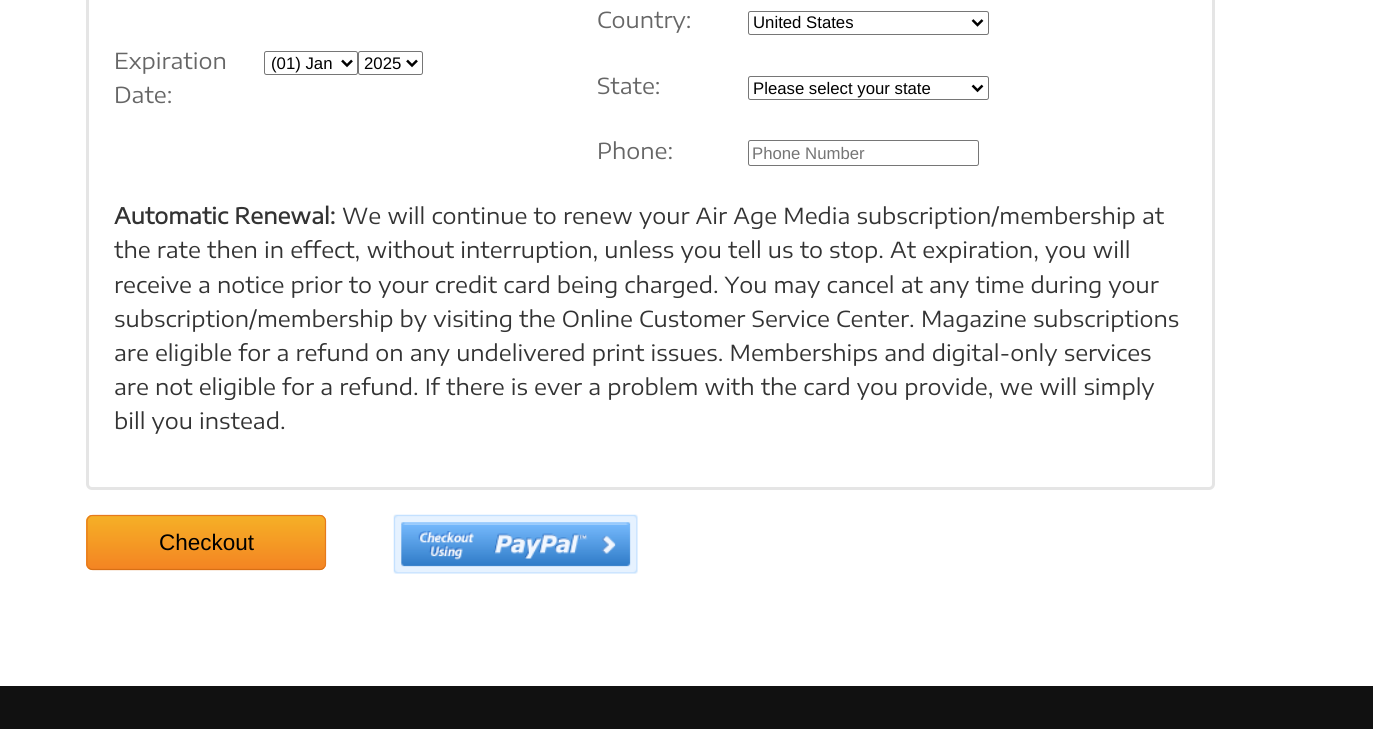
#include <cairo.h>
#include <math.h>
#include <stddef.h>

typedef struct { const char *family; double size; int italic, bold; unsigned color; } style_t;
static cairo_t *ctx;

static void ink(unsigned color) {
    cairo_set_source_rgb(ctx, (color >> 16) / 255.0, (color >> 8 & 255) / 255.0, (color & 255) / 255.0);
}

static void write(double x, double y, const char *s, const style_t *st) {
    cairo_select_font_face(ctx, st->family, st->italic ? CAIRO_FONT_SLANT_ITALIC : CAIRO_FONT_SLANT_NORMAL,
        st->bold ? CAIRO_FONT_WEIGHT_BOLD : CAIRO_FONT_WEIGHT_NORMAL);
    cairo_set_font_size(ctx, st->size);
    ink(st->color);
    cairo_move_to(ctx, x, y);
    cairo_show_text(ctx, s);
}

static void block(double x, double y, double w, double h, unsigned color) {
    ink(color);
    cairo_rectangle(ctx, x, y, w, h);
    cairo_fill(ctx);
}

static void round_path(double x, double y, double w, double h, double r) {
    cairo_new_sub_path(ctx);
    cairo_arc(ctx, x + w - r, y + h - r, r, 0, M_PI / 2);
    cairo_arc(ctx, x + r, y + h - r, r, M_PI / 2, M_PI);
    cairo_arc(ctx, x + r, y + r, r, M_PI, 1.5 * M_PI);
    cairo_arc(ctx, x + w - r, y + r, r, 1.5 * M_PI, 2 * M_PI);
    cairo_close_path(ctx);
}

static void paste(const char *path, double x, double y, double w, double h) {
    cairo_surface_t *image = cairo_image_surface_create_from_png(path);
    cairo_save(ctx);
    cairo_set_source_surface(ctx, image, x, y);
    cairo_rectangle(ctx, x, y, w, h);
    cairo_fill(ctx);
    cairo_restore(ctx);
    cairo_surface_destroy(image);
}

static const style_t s1 = {"Encode Sans Expanded", 22, 0, 0, 0x666666};
static const style_t s2 = {"Liberation Sans", 16.75, 0, 0, 0x000000};
static const style_t s3 = {"Liberation Sans", 16.75, 0, 0, 0x757575};
static const style_t s4 = {"Encode Sans Expanded", 22, 0, 1, 0x333333};
static const style_t s5 = {"Encode Sans Expanded", 22, 0, 0, 0x333333};
static const style_t s6 = {"Liberation Sans", 22.5, 0, 0, 0x000000};

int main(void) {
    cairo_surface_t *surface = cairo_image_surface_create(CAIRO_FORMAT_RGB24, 1373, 729);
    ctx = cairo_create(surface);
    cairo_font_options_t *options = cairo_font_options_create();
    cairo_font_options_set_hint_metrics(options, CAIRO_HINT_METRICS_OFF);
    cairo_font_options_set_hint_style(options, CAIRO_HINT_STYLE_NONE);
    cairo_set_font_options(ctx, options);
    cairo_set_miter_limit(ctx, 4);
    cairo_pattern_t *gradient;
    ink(0xffffff);
    cairo_paint(ctx);
    round_path(87.5, -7.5, 1126, 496, 4.5);
    ink(0xe5e5e5);
    cairo_set_line_width(ctx, 3);
    cairo_stroke(ctx);
    write(114, 69, "Expiration", &s1);
    write(114, 103, "Date:", &s1);
    round_path(264.5, 51.5, 93, 23, 2);
    ink(0x767676);
    cairo_set_line_width(ctx, 1);
    cairo_stroke(ctx);
    cairo_new_path(ctx);
    cairo_move_to(ctx, 342, 60.5);
    cairo_line_to(ctx, 347, 65.5);
    cairo_line_to(ctx, 352, 60.5);
    ink(0x000000);
    cairo_set_line_width(ctx, 2.5);
    cairo_stroke(ctx);
    write(271, 69, "(01) Jan", &s2);
    round_path(358.5, 51.5, 64, 23, 2);
    ink(0x767676);
    cairo_set_line_width(ctx, 1);
    cairo_stroke(ctx);
    cairo_new_path(ctx);
    cairo_move_to(ctx, 407, 60.5);
    cairo_line_to(ctx, 412, 65.5);
    cairo_line_to(ctx, 417, 60.5);
    ink(0x000000);
    cairo_set_line_width(ctx, 2.5);
    cairo_stroke(ctx);
    write(364, 69, "2025", &s2);
    write(597, 28, "Country:", &s1);
    round_path(748.5, 11.5, 240, 23, 2);
    ink(0x767676);
    cairo_set_line_width(ctx, 1);
    cairo_stroke(ctx);
    cairo_new_path(ctx);
    cairo_move_to(ctx, 972.5, 20);
    cairo_line_to(ctx, 977.5, 25);
    cairo_line_to(ctx, 982.5, 20);
    ink(0x000000);
    cairo_set_line_width(ctx, 2.5);
    cairo_stroke(ctx);
    write(753, 28, "United States", &s2);
    write(597, 94, "State:", &s1);
    round_path(748.5, 76.5, 240, 23, 2);
    ink(0x767676);
    cairo_set_line_width(ctx, 1);
    cairo_stroke(ctx);
    cairo_new_path(ctx);
    cairo_move_to(ctx, 972.5, 85.5);
    cairo_line_to(ctx, 977.5, 90.5);
    cairo_line_to(ctx, 982.5, 85.5);
    ink(0x000000);
    cairo_set_line_width(ctx, 2.5);
    cairo_stroke(ctx);
    write(753, 94, "Please select your state", &s2);
    write(597, 159, "Phone:", &s1);
    round_path(748.5, 140.5, 230, 25, 2);
    ink(0x767676);
    cairo_set_line_width(ctx, 1);
    cairo_stroke(ctx);
    write(752, 159, "Phone Number", &s3);
    write(114, 224, "Automatic Renewal:", &s4);
    write(342, 224, "We will continue to renew your Air Age Media subscription/membership at", &s5);
    write(114, 258, "the rate then in effect, without interruption, unless you tell us to stop. At expiration, you will", &s5);
    write(114, 293, "receive a notice prior to your credit card being charged. You may cancel at any time during your", &s5);
    write(114, 327, "subscription/membership by visiting the Online Customer Service Center. Magazine subscriptions", &s5);
    write(114, 361, "are eligible for a refund on any undelivered print issues. Memberships and digital-only services", &s5);
    write(114, 395, "are not eligible for a refund. If there is ever a problem with the card you provide, we will simply", &s5);
    write(114, 429, "bill you instead.", &s5);
    cairo_save(ctx);
    round_path(86, 515, 240, 55, 6);
    cairo_clip(ctx);
    gradient = cairo_pattern_create_linear(88, 464, 88, 516);
    cairo_pattern_add_color_stop_rgba(gradient, 0, 0.961, 0.69, 0.149, 1);
    cairo_pattern_add_color_stop_rgba(gradient, 1, 0.957, 0.518, 0.137, 1);
    cairo_set_source(ctx, gradient);
    cairo_pattern_destroy(gradient);
    cairo_rectangle(ctx, 86, 515, 240, 1);
    cairo_fill(ctx);
    gradient = cairo_pattern_create_linear(88, 516, 88, 569);
    cairo_pattern_add_color_stop_rgba(gradient, 0, 0.961, 0.69, 0.149, 1);
    cairo_pattern_add_color_stop_rgba(gradient, 1, 0.957, 0.518, 0.137, 1);
    cairo_set_source(ctx, gradient);
    cairo_pattern_destroy(gradient);
    cairo_rectangle(ctx, 86, 516, 240, 53);
    cairo_fill(ctx);
    gradient = cairo_pattern_create_linear(88, 569, 88, 621);
    cairo_pattern_add_color_stop_rgba(gradient, 0, 0.961, 0.69, 0.149, 1);
    cairo_pattern_add_color_stop_rgba(gradient, 1, 0.957, 0.518, 0.137, 1);
    cairo_set_source(ctx, gradient);
    cairo_pattern_destroy(gradient);
    cairo_rectangle(ctx, 86, 569, 240, 1);
    cairo_fill(ctx);
    cairo_restore(ctx);
    cairo_new_path(ctx);
    cairo_move_to(ctx, 324, 567.5);
    cairo_curve_to(ctx, 323, 569, 321.5, 569.5, 320, 569.5);
    cairo_line_to(ctx, 92.5, 569.5);
    cairo_curve_to(ctx, 91, 569.5, 89.5, 569, 88.5, 567.5);
    ink(0xd86f15);
    cairo_set_line_width(ctx, 1.2);
    cairo_stroke(ctx);
    cairo_new_path(ctx);
    cairo_move_to(ctx, 88.5, 567.5);
    cairo_curve_to(ctx, 87.5, 566.5, 87, 565, 87, 564);
    cairo_line_to(ctx, 87, 521);
    cairo_curve_to(ctx, 87, 520, 87.5, 518.5, 88.5, 517.5);
    cairo_curve_to(ctx, 89.5, 516, 91, 515.5, 92.5, 515.5);
    cairo_line_to(ctx, 320, 515.5);
    cairo_curve_to(ctx, 321.5, 515.5, 323, 516, 324, 517.5);
    cairo_curve_to(ctx, 325, 518.5, 325.5, 520, 325.5, 521);
    cairo_line_to(ctx, 325.5, 564);
    cairo_curve_to(ctx, 325.5, 565, 325, 566.5, 324, 567.5);
    ink(0xe6791c);
    cairo_stroke(ctx);
    write(159, 550, "Checkout", &s6);
    paste("pic1.png", 393, 514, 245, 60);
    block(0, 686, 1373, 43, 0x111111);
    cairo_surface_write_to_png(surface, "screenshot.png");
    cairo_font_options_destroy(options);
    cairo_destroy(ctx);
    cairo_surface_destroy(surface);
    return 0;
}
